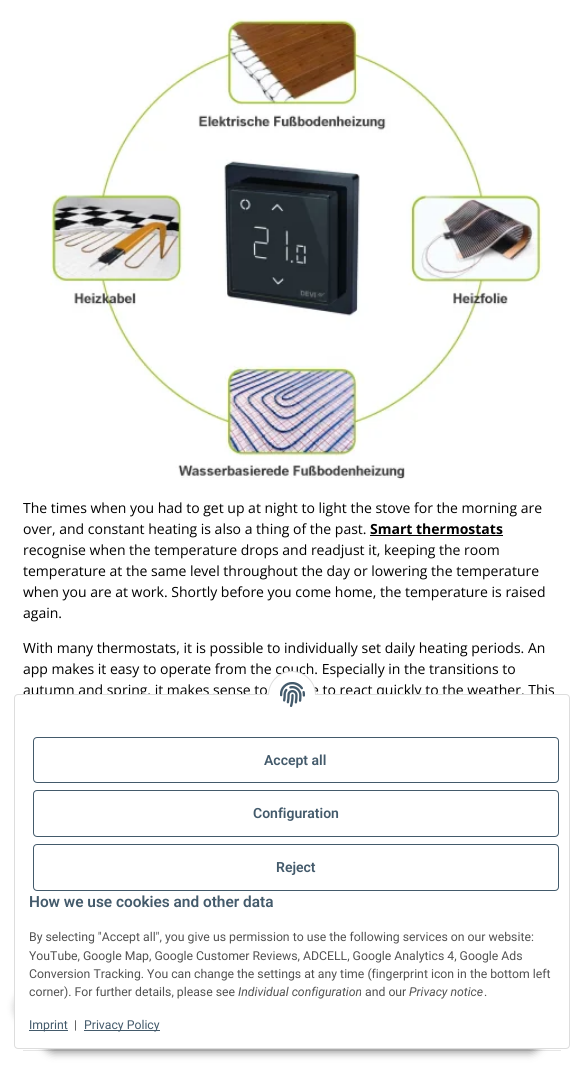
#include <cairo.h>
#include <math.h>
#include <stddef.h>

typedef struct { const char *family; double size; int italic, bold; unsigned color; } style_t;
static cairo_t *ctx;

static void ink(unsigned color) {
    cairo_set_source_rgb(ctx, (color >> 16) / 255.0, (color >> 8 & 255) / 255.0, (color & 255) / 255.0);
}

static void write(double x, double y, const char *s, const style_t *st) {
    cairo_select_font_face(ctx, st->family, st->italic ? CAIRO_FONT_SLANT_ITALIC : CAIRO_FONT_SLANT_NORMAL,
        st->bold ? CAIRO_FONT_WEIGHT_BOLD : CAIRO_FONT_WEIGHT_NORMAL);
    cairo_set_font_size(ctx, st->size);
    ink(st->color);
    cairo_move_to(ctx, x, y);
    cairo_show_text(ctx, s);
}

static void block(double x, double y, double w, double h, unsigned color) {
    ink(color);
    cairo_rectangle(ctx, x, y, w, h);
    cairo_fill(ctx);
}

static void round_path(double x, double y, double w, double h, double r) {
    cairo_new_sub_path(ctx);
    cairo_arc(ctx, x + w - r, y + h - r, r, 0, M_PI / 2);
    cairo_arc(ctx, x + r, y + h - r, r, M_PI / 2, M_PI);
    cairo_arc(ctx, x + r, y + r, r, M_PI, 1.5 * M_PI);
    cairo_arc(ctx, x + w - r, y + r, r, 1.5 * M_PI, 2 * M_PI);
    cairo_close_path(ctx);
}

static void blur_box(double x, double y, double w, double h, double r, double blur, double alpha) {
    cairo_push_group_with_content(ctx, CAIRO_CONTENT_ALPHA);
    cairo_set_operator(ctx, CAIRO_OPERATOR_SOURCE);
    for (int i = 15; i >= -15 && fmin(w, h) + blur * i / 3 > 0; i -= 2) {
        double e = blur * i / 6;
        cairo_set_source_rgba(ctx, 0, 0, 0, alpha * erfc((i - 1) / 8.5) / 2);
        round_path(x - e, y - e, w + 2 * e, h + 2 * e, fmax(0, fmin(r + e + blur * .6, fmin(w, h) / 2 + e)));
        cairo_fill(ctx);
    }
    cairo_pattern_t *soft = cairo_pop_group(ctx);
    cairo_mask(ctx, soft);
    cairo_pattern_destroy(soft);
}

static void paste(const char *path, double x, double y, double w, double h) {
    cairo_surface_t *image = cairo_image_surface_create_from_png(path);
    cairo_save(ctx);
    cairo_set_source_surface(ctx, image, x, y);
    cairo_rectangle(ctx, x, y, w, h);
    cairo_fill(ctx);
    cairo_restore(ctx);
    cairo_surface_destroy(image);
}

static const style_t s1 = {"Open Sans", 14, 0, 0, 0x000000};
static const style_t s2 = {"Open Sans", 14, 0, 1, 0x000000};
static const style_t s3 = {"Roboto SemiBold", 14, 0, 0, 0x435a6b};
static const style_t s4 = {"Roboto SemiBold", 15.4, 0, 0, 0x435a6b};
static const style_t s5 = {"Roboto", 12.25, 0, 0, 0x525252};
static const style_t s6 = {"Roboto", 12.25, 1, 0, 0x525252};
static const style_t s7 = {"Roboto", 12.25, 0, 0, 0x435a6b};

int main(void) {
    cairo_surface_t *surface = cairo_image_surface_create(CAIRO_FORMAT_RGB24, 584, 1077);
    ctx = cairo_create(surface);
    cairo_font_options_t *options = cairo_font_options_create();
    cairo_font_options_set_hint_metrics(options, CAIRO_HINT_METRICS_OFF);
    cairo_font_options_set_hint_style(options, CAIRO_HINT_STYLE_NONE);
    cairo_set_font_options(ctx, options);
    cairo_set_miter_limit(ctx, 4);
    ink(0xffffff);
    cairo_paint(ctx);
    paste("pic1.png", 50, 18, 493, 462);
    write(23, 513, "The times when you had to get up at night to light the stove for the morning are", &s1);
    write(23, 534, "over, and constant heating is also a thing of the past.", &s1);
    write(370, 534, "Smart thermostats", &s2);
    block(370, 535, 133, 1, 0x000000);
    write(23, 555, "recognise when the temperature drops and readjust it, keeping the room", &s1);
    write(23, 576, "temperature at the same level throughout the day or lowering the temperature", &s1);
    write(23, 597, "when you are at work. Shortly before you come home, the temperature is raised", &s1);
    write(23, 618, "again.", &s1);
    write(23, 653, "With many thermostats, it is possible to individually set daily heating periods. An", &s1);
    write(23, 674, "app makes it easy to operate from the couch. Especially in the transitions to", &s1);
    write(23, 695, "autumn and spring, it makes sense to", &s1);
    write(311, 695, "e to react quickly to the weather. This", &s1);
    block(23, 1050, 538, 1, 0xe6e6e6);
    ink(0x000000);
    blur_box(43, 1024, 498, 28, 14, 4.5, 0.45);
    blur_box(14, 990, 35, 35, 17.5, 3.5, 0.2);
    ink(0xffffff);
    round_path(14.5, 694.5, 555, 354, 3.5);
    cairo_fill_preserve(ctx);
    ink(0xdddddd);
    cairo_set_line_width(ctx, 1);
    cairo_stroke(ctx);
    ink(0xffffff);
    cairo_arc(ctx, 292, 695, 23.5, 0, 2 * M_PI);
    cairo_fill_preserve(ctx);
    ink(0xdddddd);
    cairo_stroke(ctx);
    block(268, 695, 48, 24, 0xffffff);
    paste("pic2.png", 280, 682, 25, 25);
    round_path(33.5, 737.5, 525, 45, 3.5);
    ink(0x435a6b);
    cairo_stroke(ctx);
    write(264, 765, "Accept all", &s3);
    round_path(33.5, 790.5, 525, 46, 3.5);
    cairo_stroke(ctx);
    write(253, 818, "Configuration", &s3);
    round_path(33.5, 844.5, 525, 46, 3.5);
    cairo_stroke(ctx);
    write(276, 872, "Reject", &s3);
    write(29, 907, "How we use cookies and other data", &s4);
    write(29, 941, "By selecting \"Accept all\", you give us permission to use the following services on our website:", &s5);
    write(29, 960, "YouTube, Google Map, Google Customer Reviews, ADCELL, Google Analytics 4, Google Ads", &s5);
    write(29, 978, "Conversion Tracking. You can change the settings at any time (fingerprint icon in the bottom left", &s5);
    write(29, 996, "corner). For further details, please see", &s5);
    write(238, 996, "Individual configuration", &s6);
    write(365, 996, "and our", &s5);
    write(409, 996, "Privacy notice", &s6);
    write(484, 996, ".", &s5);
    block(29, 1030, 39, 1, 0x435a6b);
    write(29, 1029, "Imprint", &s7);
    write(74, 1029, "|", &s5);
    block(84, 1030, 76, 1, 0x435a6b);
    write(84, 1029, "Privacy Policy", &s7);
    cairo_surface_write_to_png(surface, "screenshot.png");
    cairo_font_options_destroy(options);
    cairo_destroy(ctx);
    cairo_surface_destroy(surface);
    return 0;
}
